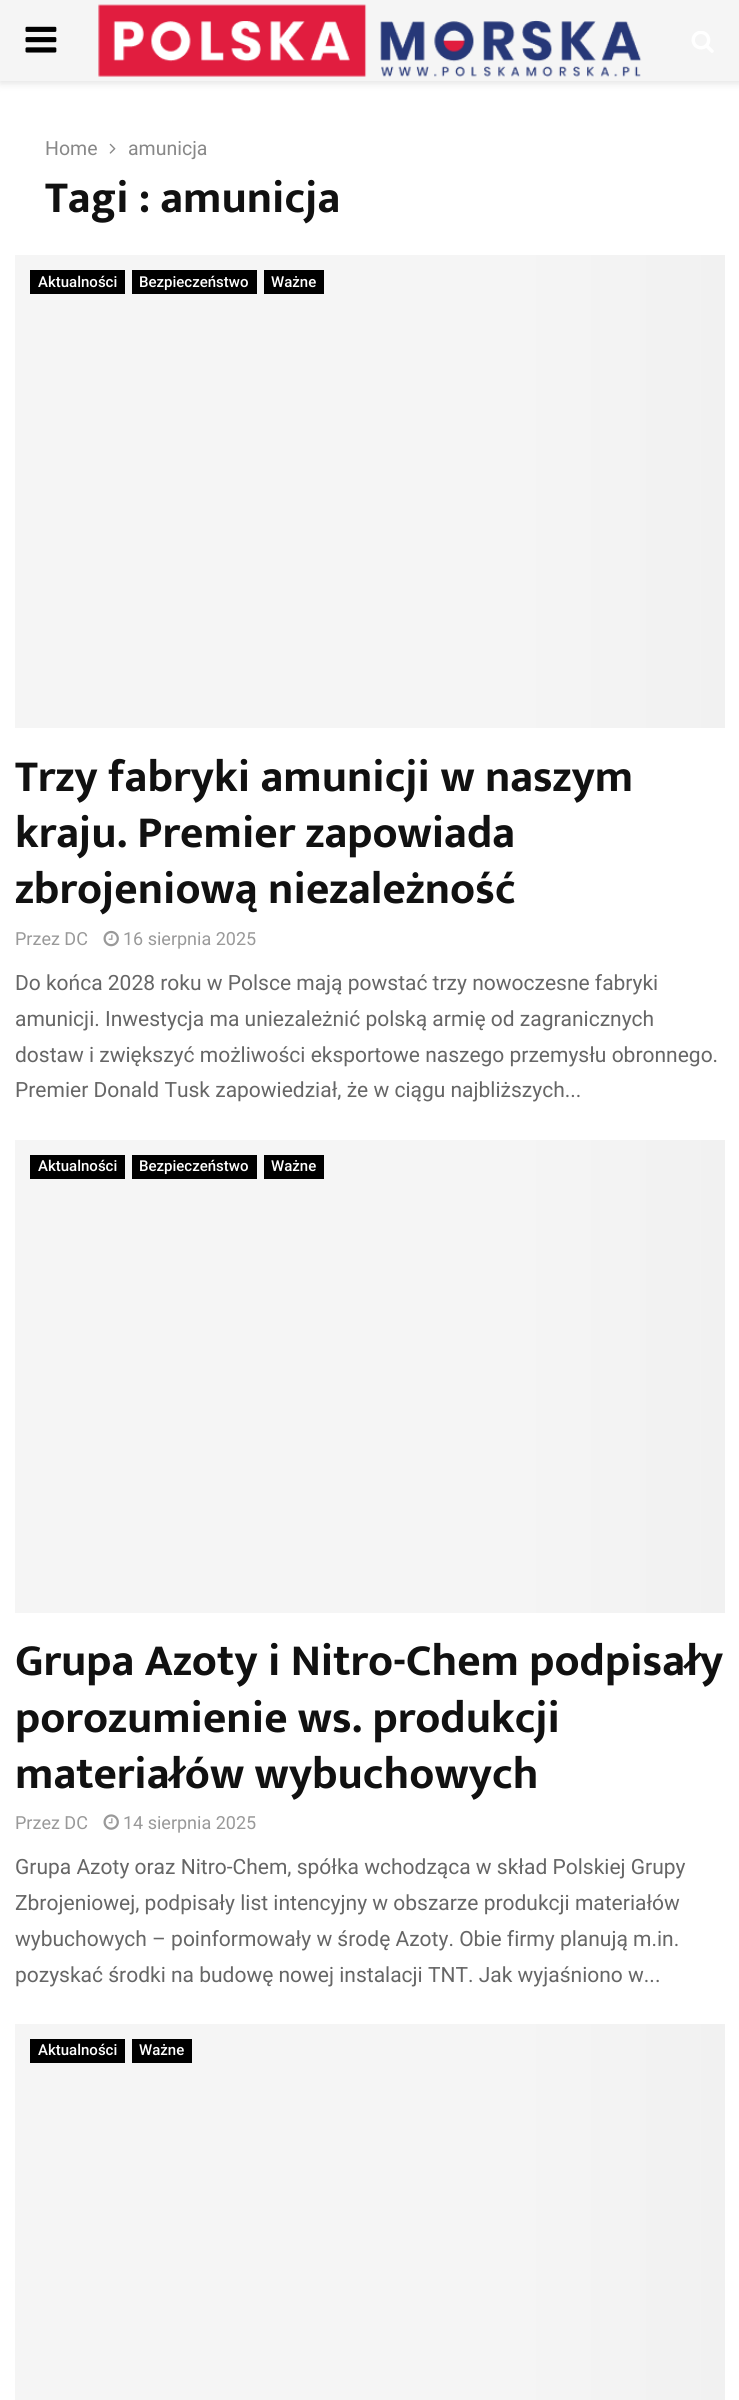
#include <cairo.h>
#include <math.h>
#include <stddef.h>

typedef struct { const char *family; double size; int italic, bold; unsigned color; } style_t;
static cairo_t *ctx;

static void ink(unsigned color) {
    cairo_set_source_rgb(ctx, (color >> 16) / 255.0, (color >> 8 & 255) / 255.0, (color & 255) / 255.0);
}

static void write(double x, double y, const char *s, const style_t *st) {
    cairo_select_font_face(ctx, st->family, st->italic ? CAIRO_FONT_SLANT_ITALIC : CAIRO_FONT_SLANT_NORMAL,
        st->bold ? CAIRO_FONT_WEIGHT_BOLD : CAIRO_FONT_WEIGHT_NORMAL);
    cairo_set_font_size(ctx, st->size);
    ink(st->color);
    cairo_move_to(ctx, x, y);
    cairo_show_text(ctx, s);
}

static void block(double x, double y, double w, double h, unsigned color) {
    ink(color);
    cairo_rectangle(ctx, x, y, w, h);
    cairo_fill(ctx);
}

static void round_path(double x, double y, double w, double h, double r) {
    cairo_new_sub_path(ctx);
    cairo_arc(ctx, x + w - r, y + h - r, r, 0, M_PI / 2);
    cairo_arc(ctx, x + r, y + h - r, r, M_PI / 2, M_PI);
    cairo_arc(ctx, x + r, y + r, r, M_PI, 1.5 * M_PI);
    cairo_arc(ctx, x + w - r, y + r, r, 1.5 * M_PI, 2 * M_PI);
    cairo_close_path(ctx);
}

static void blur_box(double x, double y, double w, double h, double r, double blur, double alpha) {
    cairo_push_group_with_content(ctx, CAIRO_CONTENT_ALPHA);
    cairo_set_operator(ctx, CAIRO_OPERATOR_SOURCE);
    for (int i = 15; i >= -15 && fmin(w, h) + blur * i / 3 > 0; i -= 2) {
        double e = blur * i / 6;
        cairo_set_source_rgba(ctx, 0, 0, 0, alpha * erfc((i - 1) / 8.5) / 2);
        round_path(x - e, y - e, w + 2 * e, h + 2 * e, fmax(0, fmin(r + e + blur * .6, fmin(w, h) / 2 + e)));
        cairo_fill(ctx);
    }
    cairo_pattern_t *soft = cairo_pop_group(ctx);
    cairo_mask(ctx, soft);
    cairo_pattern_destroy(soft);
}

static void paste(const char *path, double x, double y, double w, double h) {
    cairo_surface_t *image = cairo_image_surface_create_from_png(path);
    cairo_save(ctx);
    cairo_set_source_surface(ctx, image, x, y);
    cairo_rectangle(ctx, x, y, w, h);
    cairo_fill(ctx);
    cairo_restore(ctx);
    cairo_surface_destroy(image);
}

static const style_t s1 = {"Roboto", 19.5, 0, 0, 0x888888};
static const style_t s2 = {"Mukta Vaani", 45, 0, 1, 0x111111};
static const style_t s3 = {"Roboto Medium", 15, 0, 0, 0xffffff};
static const style_t s4 = {"Roboto", 18, 0, 0, 0x999999};
static const style_t s5 = {"Roboto", 21, 0, 0, 0x666666};

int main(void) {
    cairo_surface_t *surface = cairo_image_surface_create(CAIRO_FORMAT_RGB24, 739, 2400);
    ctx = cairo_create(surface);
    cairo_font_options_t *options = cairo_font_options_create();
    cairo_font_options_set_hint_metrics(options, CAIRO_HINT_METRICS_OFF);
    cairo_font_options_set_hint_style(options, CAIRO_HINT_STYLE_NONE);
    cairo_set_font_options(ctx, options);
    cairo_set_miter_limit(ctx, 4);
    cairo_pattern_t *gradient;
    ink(0xffffff);
    cairo_paint(ctx);
    ink(0xbebebe);
    blur_box(0, 2, 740, 81, 0, 4, 0.46);
    block(0, 0, 739, 81, 0xf5f5f5);
    paste("pic1.png", 25, 26, 32, 27);
    paste("pic2.png", 98, 4, 544, 73);
    paste("pic3.png", 691, 31, 23, 22);
    write(45, 155, "Home", &s1);
    paste("pic4.png", 109, 143, 7, 11);
    write(128, 155, "amunicja", &s1);
    write(45, 212, "Tagi : amunicja", &s2);
    gradient = cairo_pattern_create_linear(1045, 491, -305, 491);
    cairo_pattern_add_color_stop_rgba(gradient, 0, 0.961, 0.961, 0.961, 1);
    cairo_pattern_add_color_stop_rgba(gradient, 0.15, 0.937, 0.937, 0.937, 1);
    cairo_pattern_add_color_stop_rgba(gradient, 0.4, 0.961, 0.961, 0.961, 1);
    cairo_pattern_add_color_stop_rgba(gradient, 1, 0.961, 0.961, 0.961, 1);
    cairo_set_source(ctx, gradient);
    cairo_pattern_destroy(gradient);
    cairo_rectangle(ctx, 15, 255, 710, 473);
    cairo_fill(ctx);
    block(30, 270, 95, 24, 0x000000);
    write(38, 287, "Aktualności", &s3);
    block(132, 270, 125, 24, 0x000000);
    write(139, 287, "Bezpieczeństwo", &s3);
    block(264, 270, 60, 24, 0x000000);
    write(271, 287, "Ważne", &s3);
    write(15, 791, "Trzy fabryki amunicji w naszym", &s2);
    write(15, 847, "kraju. Premier zapowiada", &s2);
    write(15, 903, "zbrojeniową niezależność", &s2);
    write(15, 945, "Przez DC", &s4);
    paste("pic5.png", 103, 930, 16, 17);
    write(123, 945, "16 sierpnia 2025", &s4);
    write(15, 990, "Do końca 2028 roku w Polsce mają powstać trzy nowoczesne fabryki", &s5);
    write(15, 1026, "amunicji. Inwestycja ma uniezależnić polską armię od zagranicznych", &s5);
    write(15, 1062, "dostaw i zwiększyć możliwości eksportowe naszego przemysłu obronnego.", &s5);
    write(15, 1097, "Premier Donald Tusk zapowiedział, że w ciągu najbliższych...", &s5);
    gradient = cairo_pattern_create_linear(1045, 1376, -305, 1376);
    cairo_pattern_add_color_stop_rgba(gradient, 0, 0.961, 0.961, 0.961, 1);
    cairo_pattern_add_color_stop_rgba(gradient, 0.15, 0.937, 0.937, 0.937, 1);
    cairo_pattern_add_color_stop_rgba(gradient, 0.4, 0.961, 0.961, 0.961, 1);
    cairo_pattern_add_color_stop_rgba(gradient, 1, 0.961, 0.961, 0.961, 1);
    cairo_set_source(ctx, gradient);
    cairo_pattern_destroy(gradient);
    cairo_rectangle(ctx, 15, 1140, 710, 473);
    cairo_fill(ctx);
    block(30, 1155, 95, 24, 0x000000);
    write(38, 1171, "Aktualności", &s3);
    block(132, 1155, 125, 24, 0x000000);
    write(139, 1171, "Bezpieczeństwo", &s3);
    block(264, 1155, 60, 24, 0x000000);
    write(271, 1171, "Ważne", &s3);
    write(15, 1675, "Grupa Azoty i Nitro-Chem podpisały", &s2);
    write(15, 1732, "porozumienie ws. produkcji", &s2);
    write(15, 1788, "materiałów wybuchowych", &s2);
    write(15, 1829, "Przez DC", &s4);
    paste("pic6.png", 103, 1814, 16, 16);
    write(123, 1829, "14 sierpnia 2025", &s4);
    write(15, 1874, "Grupa Azoty oraz Nitro-Chem, spółka wchodząca w skład Polskiej Grupy", &s5);
    write(15, 1910, "Zbrojeniowej, podpisały list intencyjny w obszarze produkcji materiałów", &s5);
    write(15, 1946, "wybuchowych – poinformowały w środę Azoty. Obie firmy planują m.in.", &s5);
    write(15, 1982, "pozyskać środki na budowę nowej instalacji TNT. Jak wyjaśniono w...", &s5);
    gradient = cairo_pattern_create_linear(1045, 2260, -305, 2260);
    cairo_pattern_add_color_stop_rgba(gradient, 0, 0.961, 0.961, 0.961, 1);
    cairo_pattern_add_color_stop_rgba(gradient, 0.15, 0.937, 0.937, 0.937, 1);
    cairo_pattern_add_color_stop_rgba(gradient, 0.4, 0.961, 0.961, 0.961, 1);
    cairo_pattern_add_color_stop_rgba(gradient, 1, 0.961, 0.961, 0.961, 1);
    cairo_set_source(ctx, gradient);
    cairo_pattern_destroy(gradient);
    cairo_rectangle(ctx, 15, 2024, 710, 376);
    cairo_fill(ctx);
    block(30, 2039, 95, 24, 0x000000);
    write(38, 2055, "Aktualności", &s3);
    block(132, 2039, 60, 24, 0x000000);
    write(139, 2055, "Ważne", &s3);
    cairo_surface_write_to_png(surface, "screenshot.png");
    cairo_font_options_destroy(options);
    cairo_destroy(ctx);
    cairo_surface_destroy(surface);
    return 0;
}
